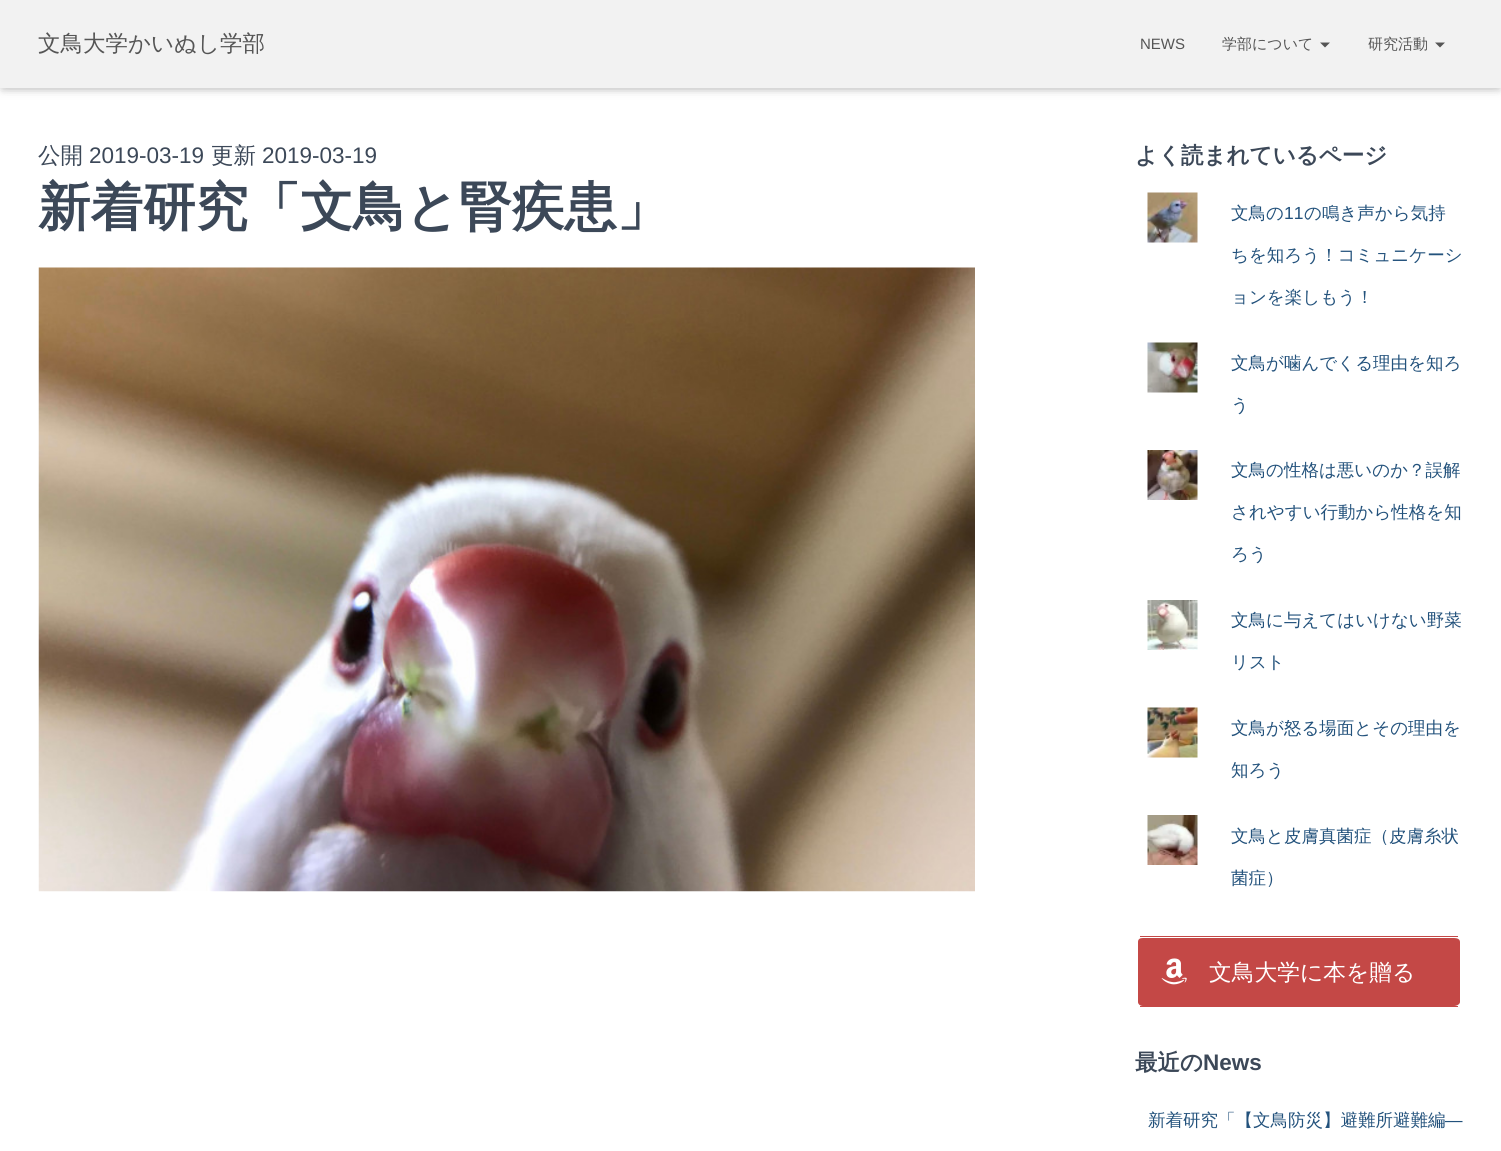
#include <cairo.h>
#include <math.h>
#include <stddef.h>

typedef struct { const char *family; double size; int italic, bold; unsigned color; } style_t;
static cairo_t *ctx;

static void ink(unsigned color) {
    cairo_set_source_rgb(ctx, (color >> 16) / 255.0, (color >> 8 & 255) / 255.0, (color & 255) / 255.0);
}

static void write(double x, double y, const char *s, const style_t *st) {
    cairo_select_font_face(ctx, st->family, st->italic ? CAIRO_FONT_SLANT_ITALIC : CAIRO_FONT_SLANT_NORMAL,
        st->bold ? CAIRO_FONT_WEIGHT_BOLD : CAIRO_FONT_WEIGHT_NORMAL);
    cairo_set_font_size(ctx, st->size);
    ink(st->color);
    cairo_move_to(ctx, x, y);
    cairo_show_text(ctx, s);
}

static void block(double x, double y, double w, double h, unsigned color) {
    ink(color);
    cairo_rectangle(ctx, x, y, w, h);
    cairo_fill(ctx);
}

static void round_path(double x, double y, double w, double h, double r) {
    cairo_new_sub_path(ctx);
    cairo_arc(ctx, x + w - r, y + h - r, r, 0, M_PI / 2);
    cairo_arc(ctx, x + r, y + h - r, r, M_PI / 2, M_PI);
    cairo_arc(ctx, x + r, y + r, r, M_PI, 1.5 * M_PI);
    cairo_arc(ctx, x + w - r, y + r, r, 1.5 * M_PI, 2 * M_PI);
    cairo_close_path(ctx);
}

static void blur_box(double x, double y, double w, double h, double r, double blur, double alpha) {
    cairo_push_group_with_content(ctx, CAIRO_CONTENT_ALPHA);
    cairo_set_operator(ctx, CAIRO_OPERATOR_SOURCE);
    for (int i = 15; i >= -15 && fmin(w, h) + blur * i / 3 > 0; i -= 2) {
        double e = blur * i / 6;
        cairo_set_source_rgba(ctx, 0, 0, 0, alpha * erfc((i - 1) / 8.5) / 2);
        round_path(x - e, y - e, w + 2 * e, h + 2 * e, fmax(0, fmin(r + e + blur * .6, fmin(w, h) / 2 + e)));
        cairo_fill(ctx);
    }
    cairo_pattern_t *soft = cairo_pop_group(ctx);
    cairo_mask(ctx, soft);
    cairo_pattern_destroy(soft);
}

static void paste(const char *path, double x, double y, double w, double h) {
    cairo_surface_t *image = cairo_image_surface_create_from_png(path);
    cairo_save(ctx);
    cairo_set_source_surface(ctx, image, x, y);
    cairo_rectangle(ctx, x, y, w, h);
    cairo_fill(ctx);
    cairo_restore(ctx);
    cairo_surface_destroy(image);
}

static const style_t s1 = {"WenQuanYi Zen Hei Medium", 22.5, 0, 0, 0x555555};
static const style_t s2 = {"Liberation Sans", 15, 0, 0, 0x555555};
static const style_t s3 = {"WenQuanYi Zen Hei Medium", 15, 0, 0, 0x555555};
static const style_t s4 = {"WenQuanYi Zen Hei Medium", 22.5, 0, 0, 0x3c4858};
static const style_t s5 = {"Liberation Sans", 22.5, 0, 0, 0x3c4858};
static const style_t s6 = {"WenQuanYi Zen Hei", 52.5, 0, 1, 0x3c4858};
static const style_t s7 = {"WenQuanYi Zen Hei", 22.5, 0, 1, 0x3c4858};
static const style_t s8 = {"WenQuanYi Zen Hei Medium", 17.5, 0, 0, 0x23527c};
static const style_t s9 = {"Liberation Sans", 17.5, 0, 0, 0x23527c};
static const style_t s10 = {"WenQuanYi Zen Hei Medium", 22.75, 0, 0, 0xffffff};
static const style_t s11 = {"Liberation Sans", 22.5, 0, 1, 0x3c4858};

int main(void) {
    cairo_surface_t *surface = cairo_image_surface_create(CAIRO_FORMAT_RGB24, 1501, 1151);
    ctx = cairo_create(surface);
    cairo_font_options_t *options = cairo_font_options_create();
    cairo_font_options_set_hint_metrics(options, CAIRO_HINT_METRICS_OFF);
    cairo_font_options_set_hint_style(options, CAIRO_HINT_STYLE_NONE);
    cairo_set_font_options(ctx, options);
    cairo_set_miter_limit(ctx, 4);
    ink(0xffffff);
    cairo_paint(ctx);
    ink(0x000000);
    blur_box(3, 8, 1496, 82, 0, 3, 0.1);
    blur_box(0, 1, 1501, 88, 0, 6, 0.12);
    blur_box(8, 9, 1486, 72, 0, 6, 0.42);
    block(0, 0, 1501, 88, 0xf2f2f2);
    write(38, 51, "文鳥大学かいぬし学部", &s1);
    write(1140, 49, "NEWS", &s2);
    write(1222, 49, "学部について", &s3);
    cairo_new_path(ctx);
    cairo_move_to(ctx, 1320, 42.5);
    cairo_line_to(ctx, 1330, 42.5);
    cairo_line_to(ctx, 1325, 47.5);
    cairo_close_path(ctx);
    cairo_fill(ctx);
    write(1368, 49, "研究活動", &s3);
    cairo_new_path(ctx);
    cairo_move_to(ctx, 1435, 42.5);
    cairo_line_to(ctx, 1445, 42.5);
    cairo_line_to(ctx, 1440, 47.5);
    cairo_close_path(ctx);
    cairo_fill(ctx);
    write(38, 163, "公開", &s4);
    write(89, 163, "2019-03-19", &s5);
    write(211, 163, "更新", &s4);
    write(262, 163, "2019-03-19", &s5);
    write(38, 225, "新着研究「文鳥と腎疾患」", &s6);
    paste("pic1.png", 38, 267, 937, 625);
    write(1135, 163, "よく読まれているページ", &s7);
    paste("pic2.png", 1147, 192, 51, 51);
    write(1231, 219, "文鳥の", &s8);
    write(1284, 219, "11", &s9);
    write(1304, 219, "の鳴き声から気持", &s8);
    write(1231, 261, "ちを知ろう！コミュニケーシ", &s8);
    write(1231, 303, "ョンを楽しもう！", &s8);
    paste("pic3.png", 1147, 342, 51, 51);
    write(1231, 369, "文鳥が噛んでくる理由を知ろ", &s8);
    write(1231, 411, "う", &s8);
    paste("pic4.png", 1147, 450, 51, 50);
    write(1231, 476, "文鳥の性格は悪いのか？誤解", &s8);
    write(1231, 518, "されやすい行動から性格を知", &s8);
    write(1231, 560, "ろう", &s8);
    paste("pic5.png", 1147, 600, 51, 50);
    write(1231, 626, "文鳥に与えてはいけない野菜", &s8);
    write(1231, 668, "リスト", &s8);
    paste("pic6.png", 1147, 707, 51, 51);
    write(1231, 734, "文鳥が怒る場面とその理由を", &s8);
    write(1231, 776, "知ろう", &s8);
    paste("pic7.png", 1147, 815, 51, 50);
    write(1231, 842, "文鳥と皮膚真菌症（皮膚糸状", &s8);
    write(1231, 884, "菌症）", &s8);
    ink(0xc44846);
    cairo_new_path(ctx);
    cairo_move_to(ctx, 1143, 938);
    cairo_line_to(ctx, 1454, 938);
    cairo_curve_to(ctx, 1457, 938, 1460, 939, 1460, 942);
    cairo_line_to(ctx, 1460, 1002);
    cairo_curve_to(ctx, 1460, 1004, 1457, 1006, 1454, 1006);
    cairo_line_to(ctx, 1143, 1006);
    cairo_curve_to(ctx, 1140, 1006, 1138, 1004, 1138, 1002);
    cairo_line_to(ctx, 1138, 942);
    cairo_curve_to(ctx, 1138, 939, 1140, 938, 1143, 938);
    cairo_close_path(ctx);
    cairo_fill(ctx);
    block(1140, 936, 318, 1, 0xc44846);
    block(1140, 1006, 318, 1, 0xc44846);
    paste("pic8.png", 1161, 958, 26, 27);
    write(1209, 980, "文鳥大学に本を贈る", &s10);
    write(1135, 1070, "最近の", &s7);
    write(1203, 1070, "News", &s11);
    write(1148, 1126, "新着研究「【文鳥防災】避難所避難編", &s8);
    write(1445, 1126, "―", &s9);
    cairo_surface_write_to_png(surface, "screenshot.png");
    cairo_font_options_destroy(options);
    cairo_destroy(ctx);
    cairo_surface_destroy(surface);
    return 0;
}
